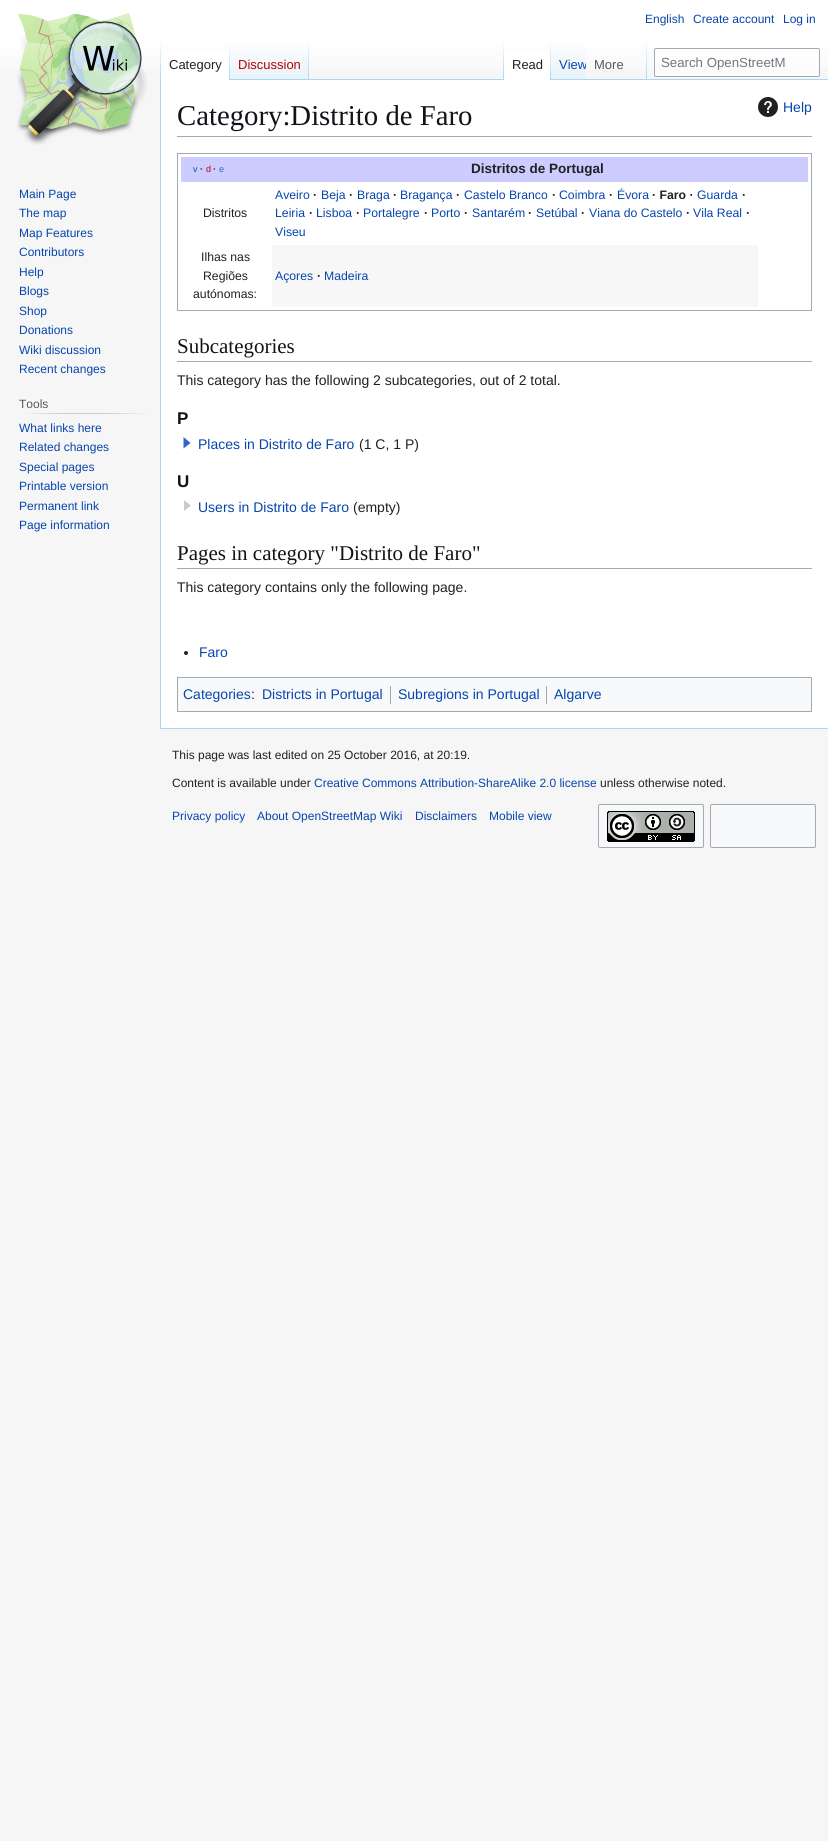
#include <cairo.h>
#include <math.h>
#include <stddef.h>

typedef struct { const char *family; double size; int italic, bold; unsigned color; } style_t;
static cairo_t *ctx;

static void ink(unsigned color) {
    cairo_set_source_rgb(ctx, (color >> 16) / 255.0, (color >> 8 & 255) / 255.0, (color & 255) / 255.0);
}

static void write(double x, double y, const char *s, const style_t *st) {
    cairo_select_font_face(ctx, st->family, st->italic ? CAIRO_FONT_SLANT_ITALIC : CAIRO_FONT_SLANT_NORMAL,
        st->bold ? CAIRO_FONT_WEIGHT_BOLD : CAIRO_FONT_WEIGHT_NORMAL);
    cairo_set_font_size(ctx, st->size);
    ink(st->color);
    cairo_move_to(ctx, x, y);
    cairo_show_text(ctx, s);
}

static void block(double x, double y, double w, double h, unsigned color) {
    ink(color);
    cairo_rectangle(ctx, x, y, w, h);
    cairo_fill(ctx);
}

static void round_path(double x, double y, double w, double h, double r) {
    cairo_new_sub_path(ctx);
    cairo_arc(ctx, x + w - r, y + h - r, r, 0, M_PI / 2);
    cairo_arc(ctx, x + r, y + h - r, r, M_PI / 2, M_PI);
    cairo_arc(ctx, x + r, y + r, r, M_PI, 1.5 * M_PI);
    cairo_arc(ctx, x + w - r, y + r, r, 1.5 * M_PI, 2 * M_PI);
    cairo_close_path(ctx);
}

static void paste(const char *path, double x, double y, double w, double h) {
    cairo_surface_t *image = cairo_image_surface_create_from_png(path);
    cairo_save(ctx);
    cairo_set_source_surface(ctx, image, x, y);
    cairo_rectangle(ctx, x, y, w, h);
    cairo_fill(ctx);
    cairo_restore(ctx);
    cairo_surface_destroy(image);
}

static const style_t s1 = {"Liberation Sans", 12, 0, 0, 0x0645ad};
static const style_t s2 = {"Liberation Sans", 13, 0, 0, 0x202122};
static const style_t s3 = {"Liberation Sans", 13, 0, 0, 0xba0000};
static const style_t s4 = {"Liberation Sans", 13, 0, 0, 0x0645ad};
static const style_t s5 = {"Liberation Sans", 13, 0, 0, 0x54595d};
static const style_t s6 = {"Liberation Sans", 13.25, 0, 0, 0x72777d};
static const style_t s7 = {"Liberation Sans", 12, 0, 0, 0x54595d};
static const style_t s8 = {"Liberation Serif", 28.75, 0, 0, 0x101418};
static const style_t s9 = {"Liberation Sans", 14, 0, 0, 0x0645ad};
static const style_t s10 = {"Liberation Sans", 9, 0, 0, 0x0645ad};
static const style_t s11 = {"Liberation Sans", 9, 0, 1, 0x202122};
static const style_t s12 = {"Liberation Sans", 9, 0, 0, 0xba0000};
static const style_t s13 = {"Liberation Sans", 9, 0, 0, 0x3366bb};
static const style_t s14 = {"Liberation Sans", 13.5, 0, 1, 0x202122};
static const style_t s15 = {"Liberation Sans", 12.25, 0, 0, 0x202122};
static const style_t s16 = {"Liberation Sans", 12.25, 0, 0, 0x0645ad};
static const style_t s17 = {"Liberation Sans", 12.25, 0, 1, 0x202122};
static const style_t s18 = {"Liberation Serif", 21, 0, 0, 0x101418};
static const style_t s19 = {"Liberation Sans", 14, 0, 0, 0x202122};
static const style_t s20 = {"Liberation Sans", 17, 0, 1, 0x101418};
static const style_t s21 = {"Liberation Sans", 12, 0, 0, 0x202122};

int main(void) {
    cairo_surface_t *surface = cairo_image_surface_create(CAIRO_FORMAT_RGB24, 828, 1841);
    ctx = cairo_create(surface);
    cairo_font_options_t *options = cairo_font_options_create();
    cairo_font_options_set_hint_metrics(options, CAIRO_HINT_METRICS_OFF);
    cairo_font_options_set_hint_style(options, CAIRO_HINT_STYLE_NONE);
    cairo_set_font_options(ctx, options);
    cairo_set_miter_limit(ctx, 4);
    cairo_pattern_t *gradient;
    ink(0xf6f6f6);
    cairo_paint(ctx);
    gradient = cairo_pattern_create_linear(414, 0, 414, 80);
    cairo_pattern_add_color_stop_rgba(gradient, 0.5, 1, 1, 1, 1);
    cairo_pattern_add_color_stop_rgba(gradient, 1, 0.965, 0.965, 0.965, 1);
    cairo_set_source(ctx, gradient);
    cairo_pattern_destroy(gradient);
    cairo_rectangle(ctx, 0, 0, 828, 69);
    cairo_fill(ctx);
    write(645, 23, "English", &s1);
    write(693, 23, "Create account", &s1);
    write(783, 23, "Log in", &s1);
    block(160, 728, 668, 1, 0xa7d7f9);
    block(160, 79, 1, 650, 0xa7d7f9);
    gradient = cairo_pattern_create_linear(161, 40, 161, 80);
    cairo_pattern_add_color_stop_rgba(gradient, 0, 0.655, 0.843, 0.976, 0);
    cairo_pattern_add_color_stop_rgba(gradient, 1, 0.655, 0.843, 0.976, 1);
    cairo_set_source(ctx, gradient);
    cairo_pattern_destroy(gradient);
    cairo_rectangle(ctx, 160, 40, 1, 40);
    cairo_fill(ctx);
    block(161, 51, 68, 29, 0xffffff);
    gradient = cairo_pattern_create_linear(230, 40, 230, 80);
    cairo_pattern_add_color_stop_rgba(gradient, 0, 1, 1, 1, 1);
    cairo_pattern_add_color_stop_rgba(gradient, 1, 0.655, 0.843, 0.976, 1);
    cairo_set_source(ctx, gradient);
    cairo_pattern_destroy(gradient);
    cairo_rectangle(ctx, 229, 40, 1, 40);
    cairo_fill(ctx);
    write(169, 69, "Category", &s2);
    gradient = cairo_pattern_create_linear(270, 80, 270, 40);
    cairo_pattern_add_color_stop_rgba(gradient, 0, 0.467, 0.757, 0.965, 1);
    cairo_pattern_add_color_stop_rgba(gradient, 0.03, 0.91, 0.949, 0.973, 1);
    cairo_pattern_add_color_stop_rgba(gradient, 1, 1, 1, 1, 1);
    cairo_set_source(ctx, gradient);
    cairo_pattern_destroy(gradient);
    cairo_rectangle(ctx, 230, 46, 79, 34);
    cairo_fill(ctx);
    gradient = cairo_pattern_create_linear(309, 40, 309, 80);
    cairo_pattern_add_color_stop_rgba(gradient, 0, 0.655, 0.843, 0.976, 0);
    cairo_pattern_add_color_stop_rgba(gradient, 1, 0.655, 0.843, 0.976, 1);
    cairo_set_source(ctx, gradient);
    cairo_pattern_destroy(gradient);
    cairo_rectangle(ctx, 308, 40, 1, 40);
    cairo_fill(ctx);
    write(238, 69, "Discussion", &s3);
    block(309, 79, 519, 1, 0xa7d7f9);
    gradient = cairo_pattern_create_linear(504, 40, 504, 80);
    cairo_pattern_add_color_stop_rgba(gradient, 0, 0.655, 0.843, 0.976, 0);
    cairo_pattern_add_color_stop_rgba(gradient, 1, 0.655, 0.843, 0.976, 1);
    cairo_set_source(ctx, gradient);
    cairo_pattern_destroy(gradient);
    cairo_rectangle(ctx, 503, 40, 1, 40);
    cairo_fill(ctx);
    block(504, 51, 46, 29, 0xffffff);
    gradient = cairo_pattern_create_linear(551, 40, 551, 80);
    cairo_pattern_add_color_stop_rgba(gradient, 0, 1, 1, 1, 1);
    cairo_pattern_add_color_stop_rgba(gradient, 1, 0.655, 0.843, 0.976, 1);
    cairo_set_source(ctx, gradient);
    cairo_pattern_destroy(gradient);
    cairo_rectangle(ctx, 550, 40, 1, 40);
    cairo_fill(ctx);
    write(512, 69, "Read", &s2);
    gradient = cairo_pattern_create_linear(569, 80, 569, 40);
    cairo_pattern_add_color_stop_rgba(gradient, 0, 0.467, 0.757, 0.965, 1);
    cairo_pattern_add_color_stop_rgba(gradient, 0.03, 0.91, 0.949, 0.973, 1);
    cairo_pattern_add_color_stop_rgba(gradient, 1, 1, 1, 1, 1);
    cairo_set_source(ctx, gradient);
    cairo_pattern_destroy(gradient);
    cairo_rectangle(ctx, 551, 46, 35, 33);
    cairo_fill(ctx);
    cairo_save(ctx);
    cairo_rectangle(ctx, 551, 40, 35, 40);
    cairo_clip(ctx);
    write(559, 69, "View", &s4);
    cairo_restore(ctx);
    gradient = cairo_pattern_create_linear(647, 40, 647, 80);
    cairo_pattern_add_color_stop_rgba(gradient, 0, 0.655, 0.843, 0.976, 0);
    cairo_pattern_add_color_stop_rgba(gradient, 1, 0.655, 0.843, 0.976, 1);
    cairo_set_source(ctx, gradient);
    cairo_pattern_destroy(gradient);
    cairo_rectangle(ctx, 646, 40, 1, 40);
    cairo_fill(ctx);
    write(594, 69, "More", &s5);
    cairo_set_source_rgba(ctx, 1, 1, 1, 0.5);
    round_path(654.5, 48.5, 165, 28, 1.5);
    cairo_fill_preserve(ctx);
    ink(0xa2a9b1);
    cairo_set_line_width(ctx, 1);
    cairo_stroke(ctx);
    write(661, 67, "Search OpenStreetM", &s6);
    paste("pic1.png", 17, 13, 130, 132);
    write(19, 198, "Main Page", &s1);
    write(19, 217, "The map", &s1);
    write(19, 237, "Map Features", &s1);
    write(19, 256, "Contributors", &s1);
    write(19, 276, "Help", &s1);
    write(19, 295, "Blogs", &s1);
    write(19, 315, "Shop", &s1);
    write(19, 334, "Donations", &s1);
    write(19, 354, "Wiki discussion", &s1);
    write(19, 373, "Recent changes", &s1);
    gradient = cairo_pattern_create_linear(19, 414, 150, 414);
    cairo_pattern_add_color_stop_rgba(gradient, 0, 0.965, 0.965, 0.965, 1);
    cairo_pattern_add_color_stop_rgba(gradient, 0.33, 0.784, 0.8, 0.82, 1);
    cairo_pattern_add_color_stop_rgba(gradient, 0.66, 0.784, 0.8, 0.82, 1);
    cairo_pattern_add_color_stop_rgba(gradient, 1, 0.965, 0.965, 0.965, 1);
    cairo_set_source(ctx, gradient);
    cairo_pattern_destroy(gradient);
    cairo_rectangle(ctx, 19, 413, 131, 1);
    cairo_fill(ctx);
    write(19, 408, "Tools", &s7);
    write(19, 432, "What links here", &s1);
    write(19, 451, "Related changes", &s1);
    write(19, 471, "Special pages", &s1);
    write(19, 490, "Printable version", &s1);
    write(19, 510, "Permanent link", &s1);
    write(19, 529, "Page information", &s1);
    block(161, 80, 667, 648, 0xffffff);
    block(177, 136, 635, 1, 0xa2a9b1);
    write(177, 125, "Category:Distrito de Faro", &s8);
    paste("pic2.png", 758, 97, 20, 20);
    write(783, 112, "Help", &s9);
    cairo_rectangle(ctx, 177.5, 153.5, 634, 157);
    ink(0xa2a9b1);
    cairo_stroke(ctx);
    block(181, 157, 627, 25, 0xccccff);
    write(193, 172, "v", &s10);
    write(200, 172, "·", &s11);
    write(206, 172, "d", &s12);
    write(213, 172, "·", &s11);
    write(219, 172, "e", &s13);
    write(471, 173, "Distritos de Portugal", &s14);
    write(203, 217, "Distritos", &s15);
    write(275, 199, "Aveiro", &s16);
    write(313, 199, "·", &s17);
    write(321, 199, "Beja", &s16);
    write(349, 199, "·", &s17);
    write(357, 199, "Braga", &s16);
    write(393, 199, "·", &s17);
    write(400, 199, "Bragança", &s16);
    write(456, 199, "·", &s17);
    write(464, 199, "Castelo Branco", &s16);
    write(552, 199, "·", &s17);
    write(559, 199, "Coimbra", &s16);
    write(609, 199, "·", &s17);
    write(617, 199, "Évora", &s16);
    write(652, 199, "· Faro ·", &s17);
    write(697, 199, "Guarda", &s16);
    write(742, 199, "·", &s17);
    write(275, 217, "Leiria", &s16);
    write(309, 217, "·", &s17);
    write(316, 217, "Lisboa", &s16);
    write(356, 217, "·", &s17);
    write(363, 217, "Portalegre", &s16);
    write(424, 217, "·", &s17);
    write(431, 217, "Porto", &s16);
    write(464, 217, "·", &s17);
    write(472, 217, "Santarém", &s16);
    write(528, 217, "·", &s17);
    write(536, 217, "Setúbal", &s16);
    write(581, 217, "·", &s17);
    write(589, 217, "Viana do Castelo", &s16);
    write(686, 217, "·", &s17);
    write(693, 217, "Vila Real", &s16);
    write(746, 217, "·", &s17);
    write(275, 236, "Viseu", &s16);
    write(201, 261, "Ilhas nas", &s15);
    write(203, 280, "Regiões", &s15);
    write(193, 298, "autónomas:", &s15);
    block(272, 245, 486, 62, 0xf7f7f7);
    write(275, 280, "Açores", &s16);
    write(317, 280, "·", &s17);
    write(324, 280, "Madeira", &s16);
    block(177, 361, 635, 1, 0xa2a9b1);
    write(177, 353, "Subcategories", &s18);
    write(177, 385, "This category has the following 2 subcategories, out of 2 total.", &s19);
    write(177, 424, "P", &s20);
    ink(0x3366cc);
    cairo_new_path(ctx);
    cairo_move_to(ctx, 190.5, 443);
    cairo_line_to(ctx, 183.5, 448.5);
    cairo_line_to(ctx, 183.5, 437);
    cairo_close_path(ctx);
    cairo_fill(ctx);
    write(198, 449, "Places in Distrito de Faro", &s9);
    write(359, 449, "(1 C, 1 P)", &s19);
    write(177, 487, "U", &s20);
    ink(0xc8ccd1);
    cairo_new_path(ctx);
    cairo_move_to(ctx, 191, 505.5);
    cairo_line_to(ctx, 184, 511);
    cairo_line_to(ctx, 184, 500);
    cairo_close_path(ctx);
    cairo_fill(ctx);
    write(198, 512, "Users in Distrito de Faro", &s9);
    write(353, 512, "(empty)", &s19);
    block(177, 568, 635, 1, 0xa2a9b1);
    write(177, 560, "Pages in category \"Distrito de Faro\"", &s18);
    write(177, 592, "This category contains only the following page.", &s19);
    cairo_new_path(ctx);
    cairo_arc(ctx, 186, 653, 2, 0, 2 * M_PI);
    cairo_fill(ctx);
    write(199, 657, "Faro", &s9);
    ink(0xf8f9fa);
    cairo_rectangle(ctx, 177.5, 677.5, 634, 34);
    cairo_fill_preserve(ctx);
    ink(0xa2a9b1);
    cairo_stroke(ctx);
    write(183, 699, "Categories", &s9);
    write(251, 699, ":", &s19);
    write(262, 699, "Districts in Portugal", &s9);
    block(390, 686, 1, 18, 0xa2a9b1);
    write(398, 699, "Subregions in Portugal", &s9);
    block(546, 686, 1, 18, 0xa2a9b1);
    write(554, 699, "Algarve", &s9);
    write(172, 759, "This page was last edited on 25 October 2016, at 20:19.", &s21);
    write(172, 787, "Content is available under", &s21);
    write(314, 787, "Creative Commons Attribution-ShareAlike 2.0 license", &s1);
    write(600, 787, "unless otherwise noted.", &s21);
    write(172, 820, "Privacy policy", &s1);
    write(257, 820, "About OpenStreetMap Wiki", &s1);
    write(415, 820, "Disclaimers", &s1);
    write(489, 820, "Mobile view", &s1);
    ink(0xf8f9fa);
    round_path(598.5, 804.5, 105, 43, 1.5);
    cairo_fill_preserve(ctx);
    ink(0xa2a9b1);
    cairo_stroke(ctx);
    paste("pic3.png", 607, 811, 88, 31);
    ink(0xf8f9fa);
    round_path(710.5, 804.5, 105, 43, 1.5);
    cairo_fill_preserve(ctx);
    ink(0xa2a9b1);
    cairo_stroke(ctx);
    cairo_surface_write_to_png(surface, "screenshot.png");
    cairo_font_options_destroy(options);
    cairo_destroy(ctx);
    cairo_surface_destroy(surface);
    return 0;
}
